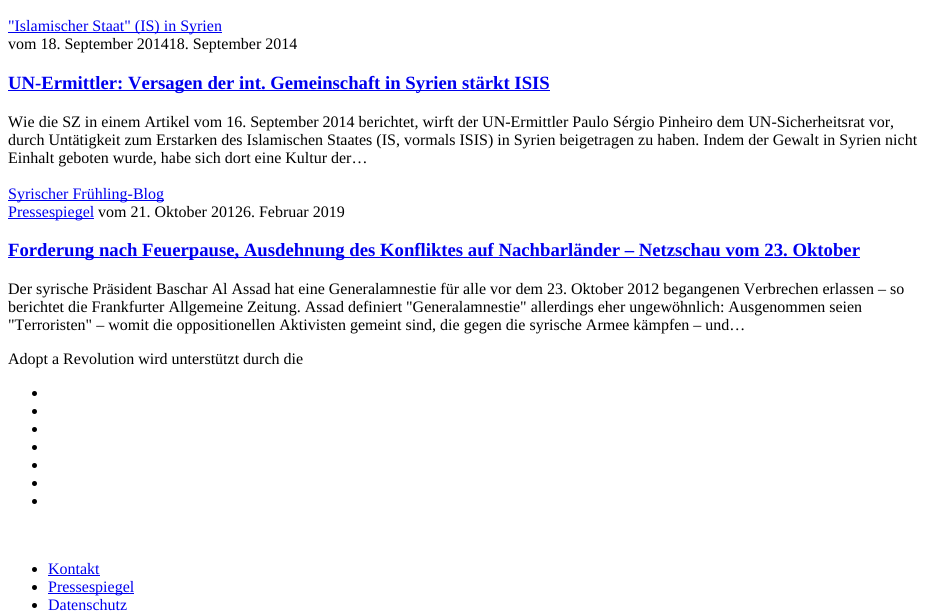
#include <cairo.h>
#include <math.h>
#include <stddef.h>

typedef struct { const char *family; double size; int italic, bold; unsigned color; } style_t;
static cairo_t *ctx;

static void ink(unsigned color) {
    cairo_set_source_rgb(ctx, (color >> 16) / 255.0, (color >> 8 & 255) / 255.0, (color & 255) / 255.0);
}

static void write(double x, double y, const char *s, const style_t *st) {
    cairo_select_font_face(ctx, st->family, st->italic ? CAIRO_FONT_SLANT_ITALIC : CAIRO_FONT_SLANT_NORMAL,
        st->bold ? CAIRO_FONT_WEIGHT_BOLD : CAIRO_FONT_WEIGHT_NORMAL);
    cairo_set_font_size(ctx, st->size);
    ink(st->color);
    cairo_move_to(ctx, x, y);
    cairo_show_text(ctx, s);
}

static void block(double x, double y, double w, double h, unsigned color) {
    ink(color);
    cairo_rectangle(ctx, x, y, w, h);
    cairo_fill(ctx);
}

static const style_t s1 = {"Liberation Serif", 16, 0, 0, 0x0000ee};
static const style_t s2 = {"Liberation Serif", 16, 0, 0, 0x000000};
static const style_t s3 = {"Liberation Serif", 18.7, 0, 1, 0x0000ee};

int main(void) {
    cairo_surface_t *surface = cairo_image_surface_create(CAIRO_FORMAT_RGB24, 941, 611);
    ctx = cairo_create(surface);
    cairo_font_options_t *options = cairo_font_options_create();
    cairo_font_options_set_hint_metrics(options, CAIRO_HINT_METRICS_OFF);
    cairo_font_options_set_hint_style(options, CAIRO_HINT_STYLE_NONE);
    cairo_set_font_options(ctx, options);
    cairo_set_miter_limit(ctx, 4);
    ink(0xffffff);
    cairo_paint(ctx);
    block(8, 32, 214, 1, 0x0000ee);
    write(8, 31, "\"Islamischer Staat\" (IS) in Syrien", &s1);
    write(8, 49, "vom 18. September 201418. September 2014", &s2);
    block(8, 90, 542, 1, 0x0000ee);
    write(8, 89, "UN-Ermittler: Versagen der int. Gemeinschaft in Syrien stärkt ISIS", &s3);
    write(8, 127, "Wie die SZ in einem Artikel vom 16. September 2014 berichtet, wirft der UN-Ermittler Paulo Sérgio Pinheiro dem UN-Sicherheitsrat vor,", &s2);
    write(8, 145, "durch Untätigkeit zum Erstarken des Islamischen Staates (IS, vormals ISIS) in Syrien beigetragen zu haben. Indem der Gewalt in Syrien nicht", &s2);
    write(8, 163, "Einhalt geboten wurde, habe sich dort eine Kultur der…", &s2);
    block(8, 200, 156, 1, 0x0000ee);
    write(8, 199, "Syrischer Frühling-Blog", &s1);
    block(8, 218, 86, 1, 0x0000ee);
    write(8, 217, "Pressespiegel", &s1);
    write(98, 217, "vom 21. Oktober 20126. Februar 2019", &s2);
    block(8, 257, 852, 1, 0x0000ee);
    write(8, 256, "Forderung nach Feuerpause, Ausdehnung des Konfliktes auf Nachbarländer – Netzschau vom 23. Oktober", &s3);
    write(8, 294, "Der syrische Präsident Baschar Al Assad hat eine Generalamnestie für alle vor dem 23. Oktober 2012 begangenen Verbrechen erlassen – so", &s2);
    write(8, 312, "berichtet die Frankfurter Allgemeine Zeitung. Assad definiert \"Generalamnestie\" allerdings eher ungewöhnlich: Ausgenommen seien", &s2);
    write(8, 330, "\"Terroristen\" – womit die oppositionellen Aktivisten gemeint sind, die gegen die syrische Armee kämpfen – und…", &s2);
    write(8, 364, "Adopt a Revolution wird unterstützt durch die", &s2);
    cairo_new_path(ctx);
    cairo_arc(ctx, 34.5, 393.5, 2.5, 0, 2 * M_PI);
    cairo_fill(ctx);
    cairo_arc(ctx, 34.5, 411.5, 2.5, 0, 2 * M_PI);
    cairo_fill(ctx);
    cairo_arc(ctx, 34.5, 429.5, 2.5, 0, 2 * M_PI);
    cairo_fill(ctx);
    cairo_arc(ctx, 34.5, 447.5, 2.5, 0, 2 * M_PI);
    cairo_fill(ctx);
    cairo_arc(ctx, 34.5, 465.5, 2.5, 0, 2 * M_PI);
    cairo_fill(ctx);
    cairo_arc(ctx, 34.5, 483.5, 2.5, 0, 2 * M_PI);
    cairo_fill(ctx);
    cairo_arc(ctx, 34.5, 501.5, 2.5, 0, 2 * M_PI);
    cairo_fill(ctx);
    cairo_arc(ctx, 34.5, 569.5, 2.5, 0, 2 * M_PI);
    cairo_fill(ctx);
    write(48, 574, "Kontakt", &s1);
    block(48, 575, 52, 1, 0x0000ee);
    ink(0x000000);
    cairo_new_path(ctx);
    cairo_arc(ctx, 34.5, 587.5, 2.5, 0, 2 * M_PI);
    cairo_fill(ctx);
    block(48, 593, 86, 1, 0x0000ee);
    write(48, 592, "Pressespiegel", &s1);
    ink(0x000000);
    cairo_new_path(ctx);
    cairo_arc(ctx, 34.5, 605.5, 2.5, 0, 2 * M_PI);
    cairo_fill(ctx);
    write(48, 610, "Datenschutz", &s1);
    cairo_surface_write_to_png(surface, "screenshot.png");
    cairo_font_options_destroy(options);
    cairo_destroy(ctx);
    cairo_surface_destroy(surface);
    return 0;
}
